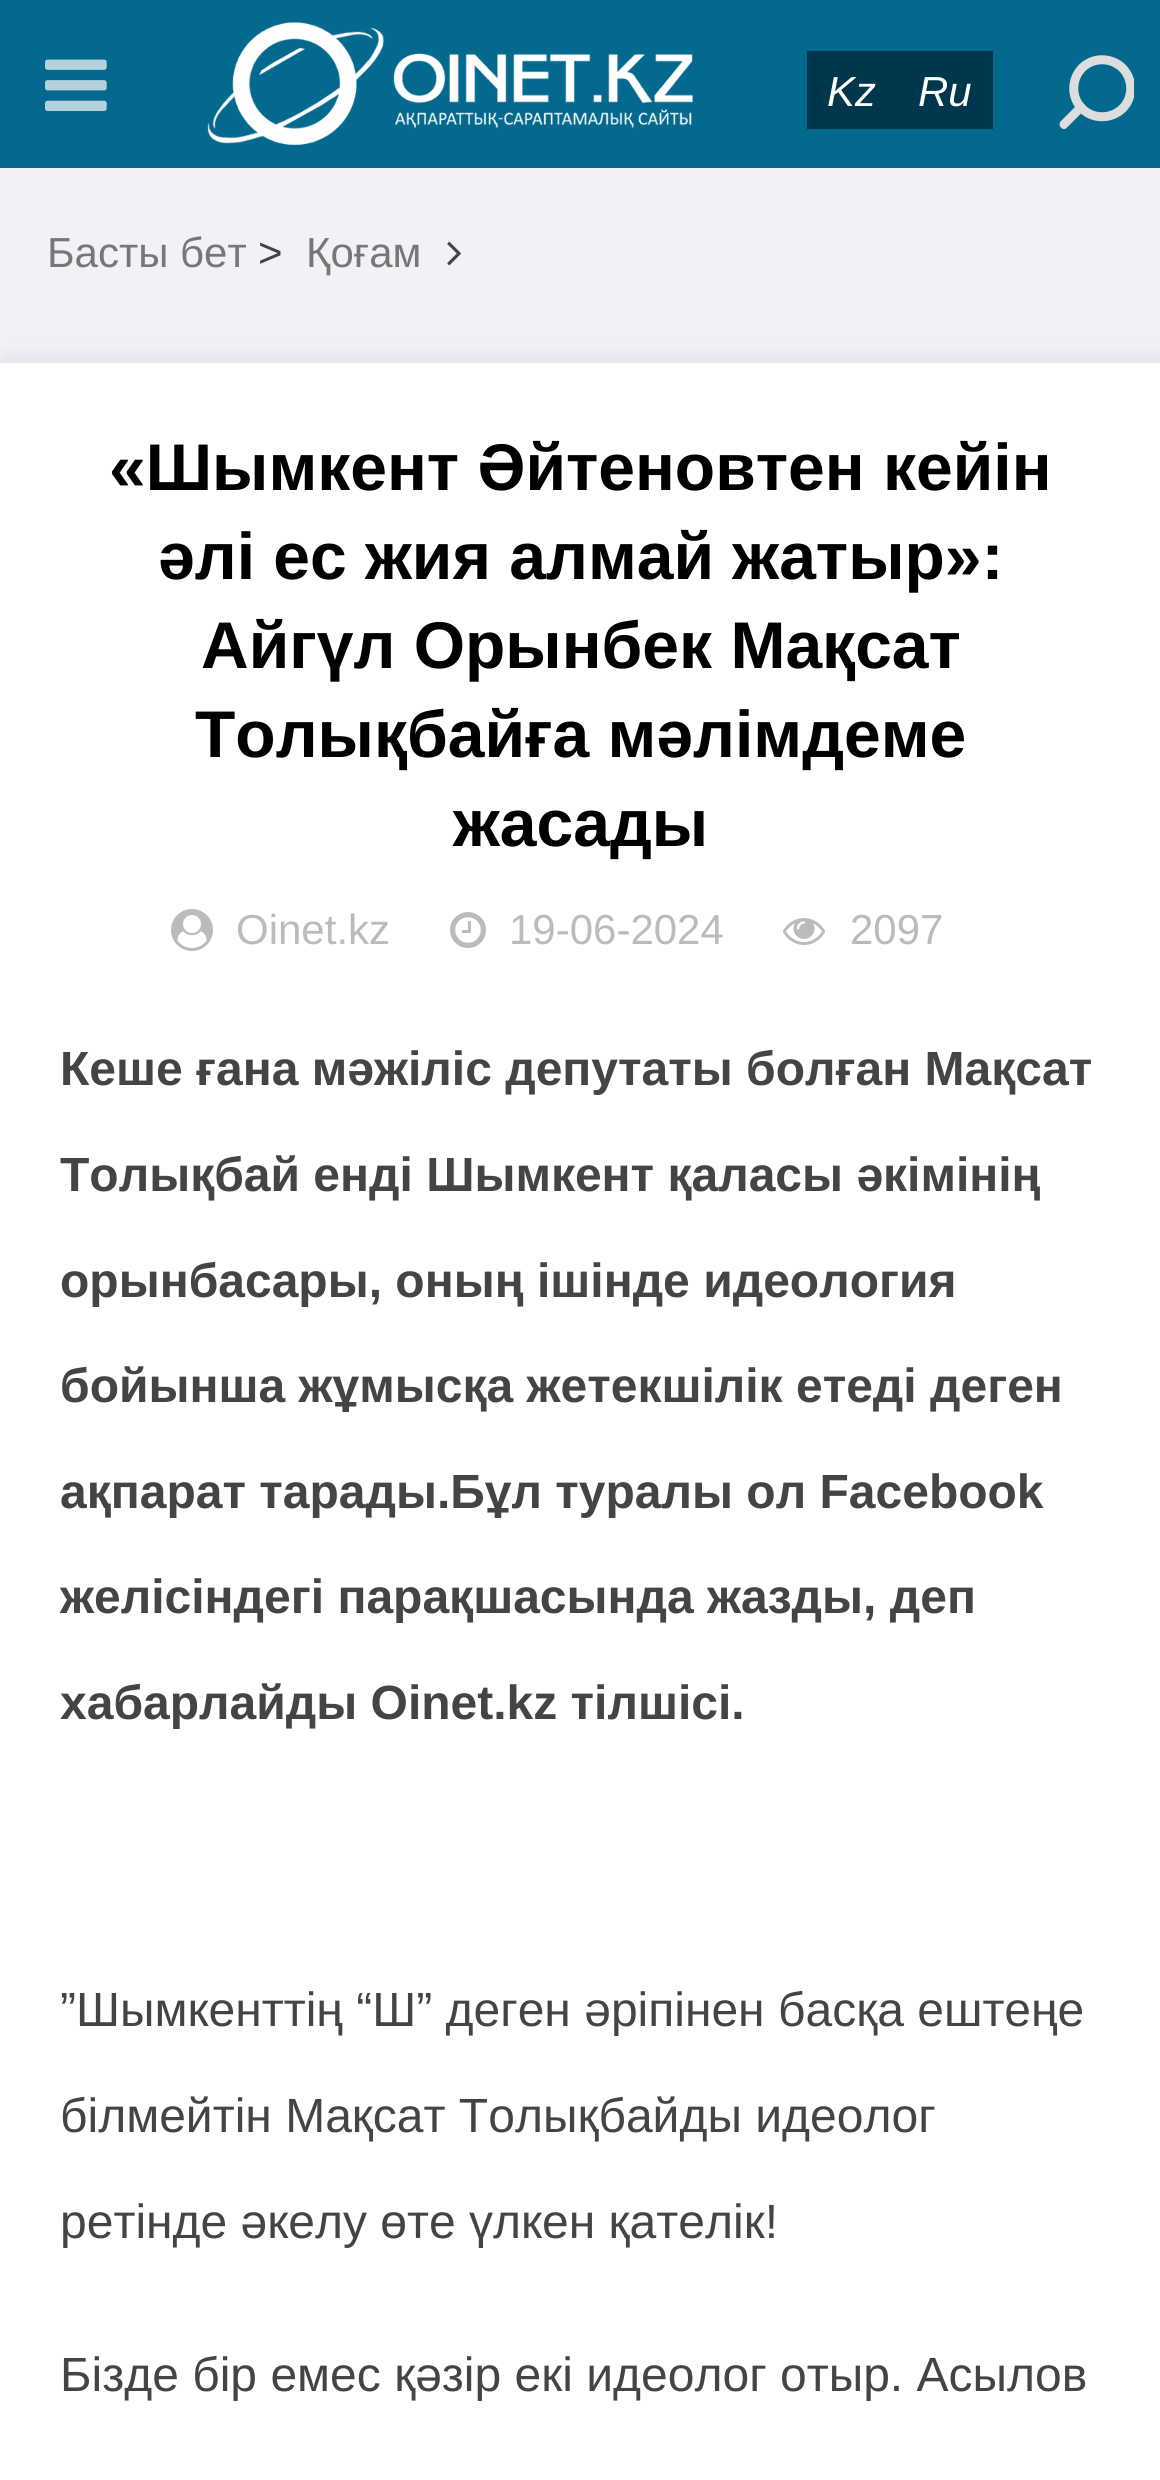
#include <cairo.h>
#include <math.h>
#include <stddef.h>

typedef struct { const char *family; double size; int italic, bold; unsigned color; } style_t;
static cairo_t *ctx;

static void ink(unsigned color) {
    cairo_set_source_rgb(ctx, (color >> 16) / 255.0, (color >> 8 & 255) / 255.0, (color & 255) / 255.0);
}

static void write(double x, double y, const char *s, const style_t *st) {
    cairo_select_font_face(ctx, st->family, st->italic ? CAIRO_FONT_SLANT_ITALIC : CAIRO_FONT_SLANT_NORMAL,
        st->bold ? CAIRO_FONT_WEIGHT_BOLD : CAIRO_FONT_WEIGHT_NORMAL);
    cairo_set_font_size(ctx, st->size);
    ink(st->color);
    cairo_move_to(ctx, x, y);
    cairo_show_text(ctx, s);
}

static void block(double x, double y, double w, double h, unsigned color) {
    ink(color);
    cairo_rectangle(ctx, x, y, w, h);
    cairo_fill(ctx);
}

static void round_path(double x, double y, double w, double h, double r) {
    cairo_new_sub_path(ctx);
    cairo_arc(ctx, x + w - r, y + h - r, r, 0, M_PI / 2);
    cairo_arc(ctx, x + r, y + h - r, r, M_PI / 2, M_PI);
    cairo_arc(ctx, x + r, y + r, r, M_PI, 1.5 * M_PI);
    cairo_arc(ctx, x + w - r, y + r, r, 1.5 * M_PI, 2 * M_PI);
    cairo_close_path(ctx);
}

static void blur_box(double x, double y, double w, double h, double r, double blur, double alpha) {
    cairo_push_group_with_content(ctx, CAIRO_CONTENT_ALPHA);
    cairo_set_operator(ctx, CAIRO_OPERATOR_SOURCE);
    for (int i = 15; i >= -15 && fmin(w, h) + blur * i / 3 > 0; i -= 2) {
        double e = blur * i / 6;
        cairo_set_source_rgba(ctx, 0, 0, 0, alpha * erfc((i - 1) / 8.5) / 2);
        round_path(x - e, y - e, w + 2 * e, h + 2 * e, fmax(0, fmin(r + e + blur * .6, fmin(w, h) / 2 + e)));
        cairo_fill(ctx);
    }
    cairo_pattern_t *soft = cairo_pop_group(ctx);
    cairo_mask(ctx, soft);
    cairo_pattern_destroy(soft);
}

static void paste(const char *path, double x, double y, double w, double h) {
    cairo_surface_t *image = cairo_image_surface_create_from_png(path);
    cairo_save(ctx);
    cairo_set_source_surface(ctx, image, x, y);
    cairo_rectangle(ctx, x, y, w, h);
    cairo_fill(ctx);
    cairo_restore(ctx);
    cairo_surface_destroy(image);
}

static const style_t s1 = {"Liberation Sans", 42, 1, 0, 0xffffff};
static const style_t s2 = {"Liberation Sans", 42, 0, 0, 0x777777};
static const style_t s3 = {"Liberation Sans", 42, 0, 0, 0x444444};
static const style_t s4 = {"Liberation Sans", 66, 0, 1, 0x000000};
static const style_t s5 = {"Liberation Sans", 42, 0, 0, 0xbbbbbb};
static const style_t s6 = {"Liberation Sans", 48, 0, 1, 0x444444};
static const style_t s7 = {"Liberation Sans", 48, 0, 0, 0x444444};

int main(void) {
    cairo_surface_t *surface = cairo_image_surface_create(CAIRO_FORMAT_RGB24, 1160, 2480);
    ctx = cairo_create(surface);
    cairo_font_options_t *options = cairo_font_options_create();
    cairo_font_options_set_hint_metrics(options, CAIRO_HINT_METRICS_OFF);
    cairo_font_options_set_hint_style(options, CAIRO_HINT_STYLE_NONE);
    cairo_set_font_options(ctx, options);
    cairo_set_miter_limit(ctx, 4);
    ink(0xf1f2f5);
    cairo_paint(ctx);
    block(0, 0, 1160, 168, 0x03698f);
    paste("pic1.png", 45, 59, 62, 52);
    paste("pic2.png", 207, 22, 486, 123);
    block(807, 51, 186, 78, 0x00374c);
    write(827, 106, "Kz", &s1);
    write(918, 106, "Ru", &s1);
    ink(0xdddddd);
    cairo_new_path(ctx);
    cairo_move_to(ctx, 1084, 104);
    cairo_curve_to(ctx, 1086, 106, 1086, 109, 1084, 110.5);
    cairo_line_to(ctx, 1067, 127.5);
    cairo_curve_to(ctx, 1065.5, 129.5, 1062.5, 129.5, 1061, 127.5);
    cairo_curve_to(ctx, 1059, 126, 1059, 123, 1061, 121);
    cairo_line_to(ctx, 1078, 104);
    cairo_curve_to(ctx, 1079.5, 102.5, 1082.5, 102.5, 1084, 104);
    cairo_close_path(ctx);
    cairo_fill(ctx);
    cairo_save(ctx);
    round_path(1014, 30, 120, 108, 18);
    cairo_clip(ctx);
    cairo_new_path(ctx);
    cairo_move_to(ctx, 1122.5, 68);
    cairo_curve_to(ctx, 1133.5, 79.5, 1133.5, 97.5, 1122.5, 108.5);
    cairo_curve_to(ctx, 1111, 119.5, 1093, 119.5, 1082, 108.5);
    cairo_curve_to(ctx, 1071, 97.5, 1071, 79.5, 1082, 68);
    cairo_curve_to(ctx, 1093, 57, 1111, 57, 1122.5, 68);
    cairo_close_path(ctx);
    cairo_set_line_width(ctx, 9);
    cairo_stroke(ctx);
    cairo_restore(ctx);
    write(47, 267, "Басты бет", &s2);
    write(258, 267, ">", &s3);
    write(306, 267, "Қоғам", &s2);
    paste("pic3.png", 447, 241, 14, 25);
    ink(0xcfcde0);
    blur_box(6, 369, 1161, 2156, 0, 15, 1);
    block(0, 363, 1160, 2117, 0xffffff);
    write(109, 490, "«Шымкент Әйтеновтен кейін", &s4);
    write(158, 579, "әлі ес жия алмай жатыр»:", &s4);
    write(201, 668, "Айгүл Орынбек Мақсат", &s4);
    write(195, 757, "Толықбайға мәлімдеме", &s4);
    write(453, 846, "жасады", &s4);
    paste("pic4.png", 171, 909, 42, 42);
    write(236, 944, "Oinet.kz", &s5);
    paste("pic5.png", 450, 912, 36, 36);
    write(509, 944, "19-06-2024", &s5);
    paste("pic6.png", 783, 918, 42, 27);
    write(850, 944, "2097", &s5);
    write(60, 1085, "Кеше ғана мәжіліс депутаты болған Мақcат", &s6);
    write(60, 1191, "Толықбай енді Шымкент қаласы әкімінің", &s6);
    write(60, 1297, "орынбасары, оның ішінде идеология", &s6);
    write(60, 1402, "бойынша жұмысқа жетекшілік етеді деген", &s6);
    write(60, 1508, "ақпарат тарады.Бұл туралы ол Facebook", &s6);
    write(60, 1613, "желісіндегі парақшасында жазды, деп", &s6);
    write(60, 1719, "хабарлайды Oinet.kz тілшісі.", &s6);
    write(60, 2026, "”Шымкенттің “Ш” деген әріпінен басқа ештеңе", &s7);
    write(60, 2132, "білмейтін Мақсат Толықбайды идеолог", &s7);
    write(60, 2238, "ретінде әкелу өте үлкен қателік!", &s7);
    write(60, 2391, "Бізде бір емес қәзір екі идеолог отыр. Асылов", &s7);
    cairo_surface_write_to_png(surface, "screenshot.png");
    cairo_font_options_destroy(options);
    cairo_destroy(ctx);
    cairo_surface_destroy(surface);
    return 0;
}
